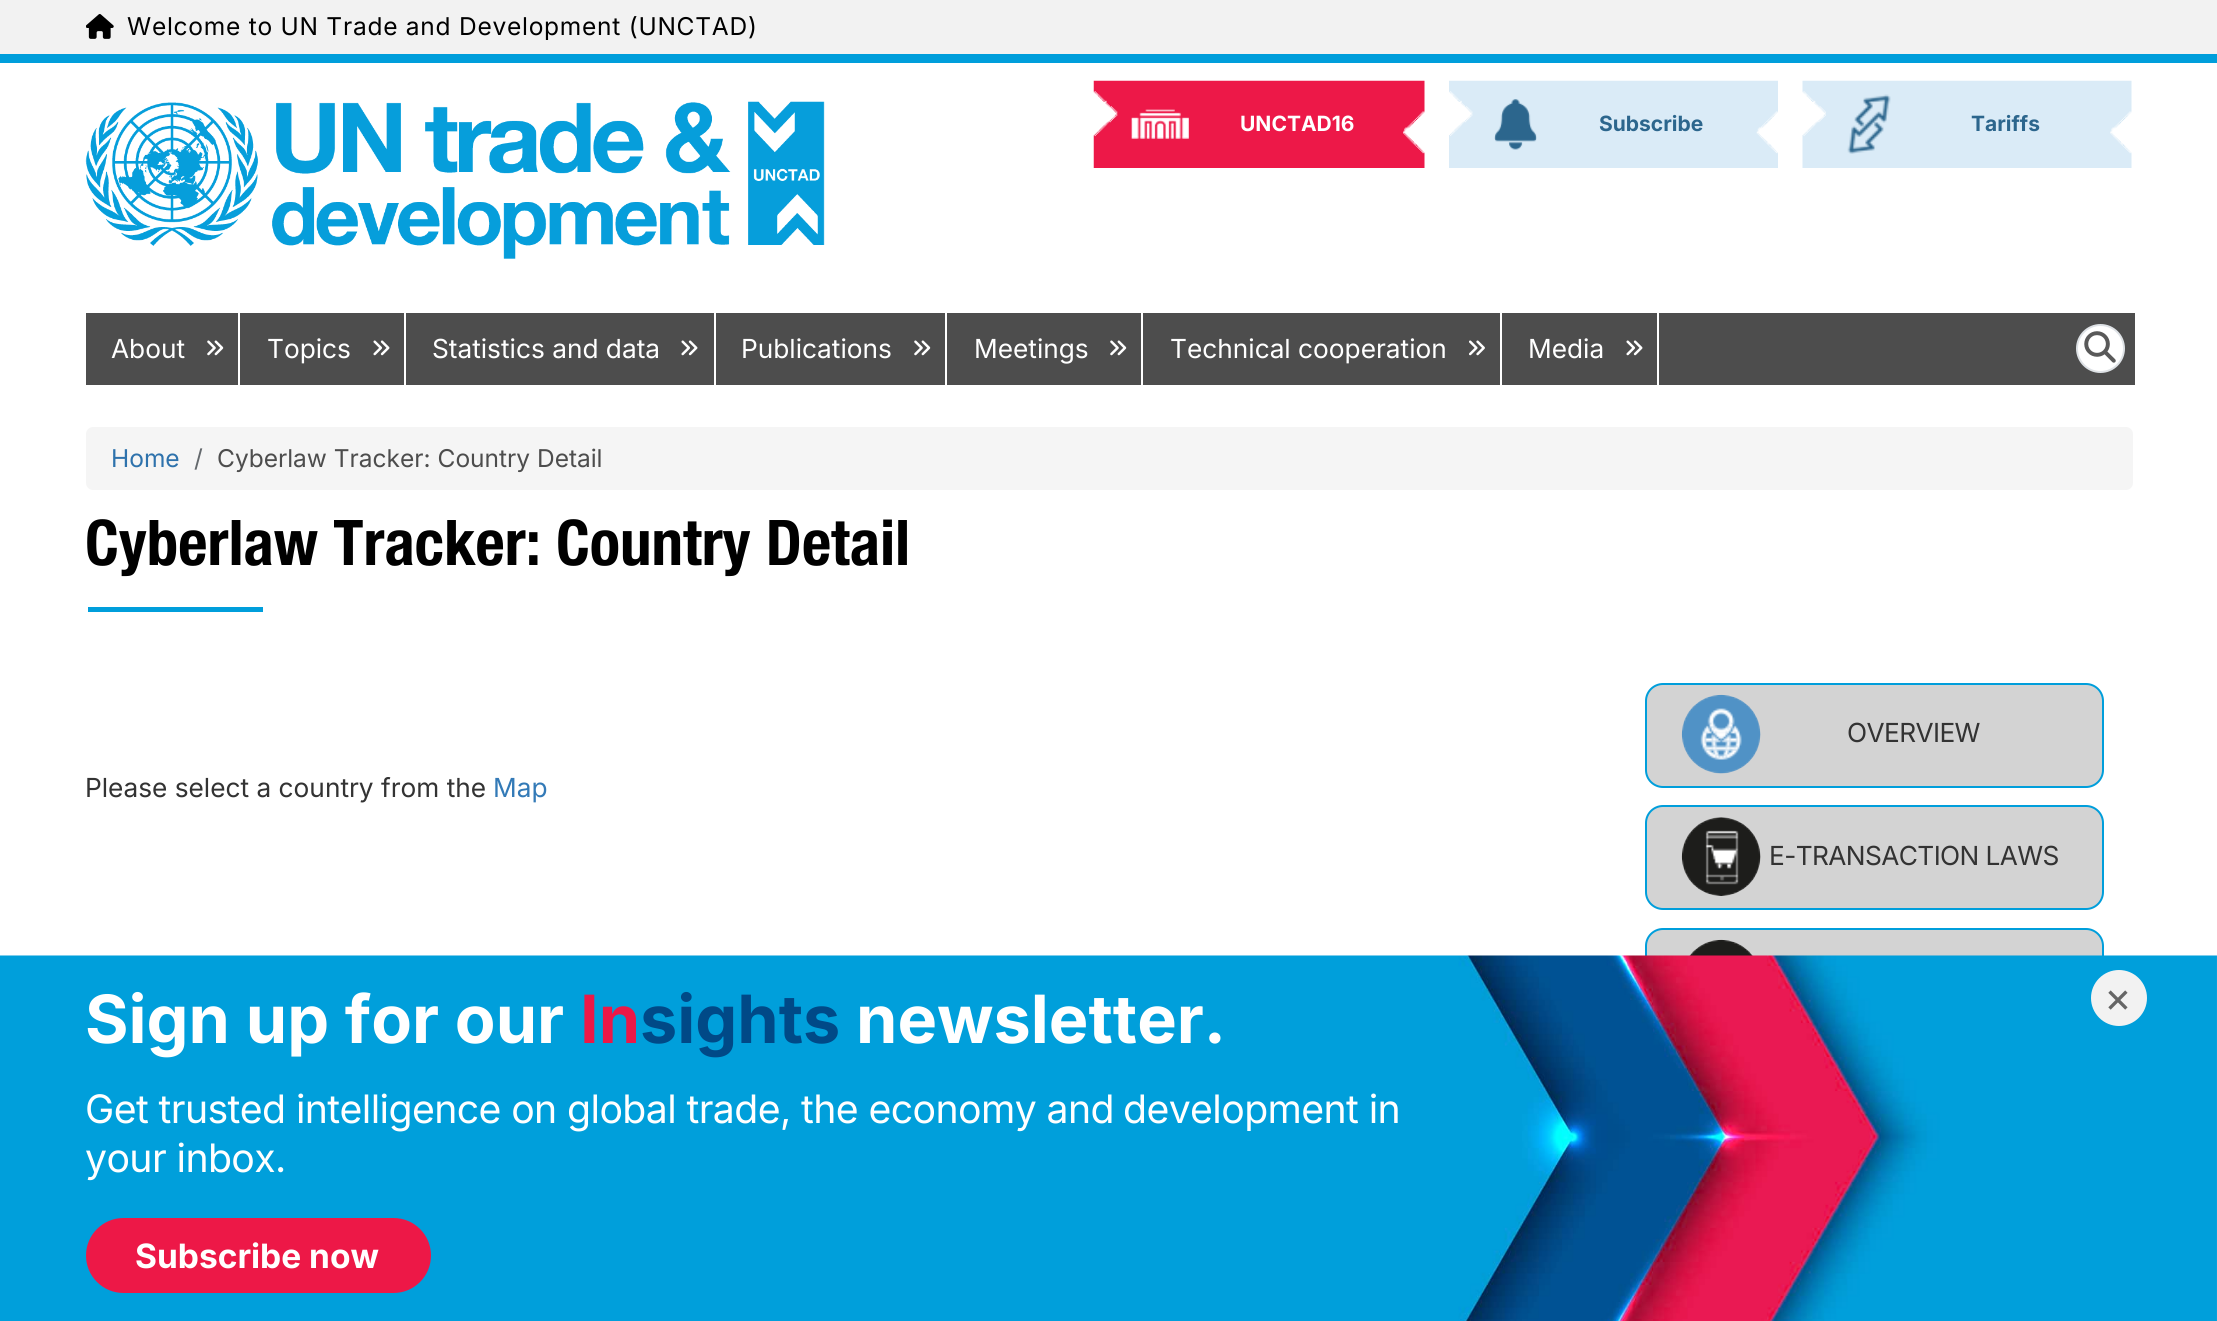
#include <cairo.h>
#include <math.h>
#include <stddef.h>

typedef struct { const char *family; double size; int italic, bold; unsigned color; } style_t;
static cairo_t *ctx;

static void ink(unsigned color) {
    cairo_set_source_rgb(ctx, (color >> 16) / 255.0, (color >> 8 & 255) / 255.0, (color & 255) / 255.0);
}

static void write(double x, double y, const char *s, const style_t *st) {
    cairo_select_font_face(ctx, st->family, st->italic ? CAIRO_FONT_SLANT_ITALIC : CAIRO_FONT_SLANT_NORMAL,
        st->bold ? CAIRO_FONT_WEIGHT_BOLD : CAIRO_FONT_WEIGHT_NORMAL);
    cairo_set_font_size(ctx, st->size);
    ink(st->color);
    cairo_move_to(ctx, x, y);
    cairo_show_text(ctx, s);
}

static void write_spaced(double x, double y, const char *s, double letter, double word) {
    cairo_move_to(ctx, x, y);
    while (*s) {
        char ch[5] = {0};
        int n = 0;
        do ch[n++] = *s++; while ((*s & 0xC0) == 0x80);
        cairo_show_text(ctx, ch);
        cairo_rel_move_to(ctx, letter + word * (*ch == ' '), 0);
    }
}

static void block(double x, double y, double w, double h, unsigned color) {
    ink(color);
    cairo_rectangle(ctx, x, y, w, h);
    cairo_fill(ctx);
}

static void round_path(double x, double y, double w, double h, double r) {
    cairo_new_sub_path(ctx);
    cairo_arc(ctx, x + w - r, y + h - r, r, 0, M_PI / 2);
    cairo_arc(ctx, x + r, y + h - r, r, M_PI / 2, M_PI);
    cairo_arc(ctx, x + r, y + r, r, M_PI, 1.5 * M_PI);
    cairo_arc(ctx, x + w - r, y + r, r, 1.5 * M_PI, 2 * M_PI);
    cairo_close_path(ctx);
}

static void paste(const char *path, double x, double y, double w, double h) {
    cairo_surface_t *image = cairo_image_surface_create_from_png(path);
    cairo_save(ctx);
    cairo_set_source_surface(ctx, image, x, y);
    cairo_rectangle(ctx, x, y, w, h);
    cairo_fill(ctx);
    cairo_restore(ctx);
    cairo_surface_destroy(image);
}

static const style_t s1 = {"Inter", 21, 0, 1, 0xffffff};
static const style_t s2 = {"Inter", 21, 0, 1, 0x2c668d};
static const style_t s3 = {"Inter", 26.25, 0, 0, 0xffffff};
static const style_t s4 = {"Inter", 24.5, 0, 0, 0x2e72ac};
static const style_t s5 = {"Inter", 24.5, 0, 0, 0x64696d};
static const style_t s6 = {"Inter", 24.5, 0, 0, 0x4d4d4d};
static const style_t s7 = {"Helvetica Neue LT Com", 63, 0, 1, 0x000000};
static const style_t s8 = {"Inter", 26.25, 0, 0, 0x333333};
static const style_t s9 = {"Inter", 26.25, 0, 0, 0x337ab7};
static const style_t s10 = {"Inter", 66.5, 0, 1, 0xffffff};
static const style_t s11 = {"Inter", 66.5, 0, 1, 0xed1847};
static const style_t s12 = {"Inter", 66.5, 0, 1, 0x004987};
static const style_t s13 = {"Inter", 42, 0, 0, 0x666666};
static const style_t s14 = {"Inter", 33.5, 0, 1, 0xffffff};

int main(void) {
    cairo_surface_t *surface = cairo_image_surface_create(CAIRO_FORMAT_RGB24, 2217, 1321);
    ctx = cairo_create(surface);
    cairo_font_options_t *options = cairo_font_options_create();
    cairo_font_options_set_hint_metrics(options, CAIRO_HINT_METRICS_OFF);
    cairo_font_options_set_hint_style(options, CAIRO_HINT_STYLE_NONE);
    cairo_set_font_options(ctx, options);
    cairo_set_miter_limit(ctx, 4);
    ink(0xffffff);
    cairo_paint(ctx);
    block(0, 0, 2217, 54, 0xf2f2f2);
    block(0, 54, 2217, 9, 0x009edb);
    paste("pic1.png", 86, 14, 28, 25);
    cairo_select_font_face(ctx, "Inter", CAIRO_FONT_SLANT_NORMAL, CAIRO_FONT_WEIGHT_NORMAL);
    cairo_set_font_size(ctx, 24.5);
    ink(0x000000);
    write_spaced(127, 35, "Welcome to UN Trade and Development (UNCTAD)", 0.75, 0);
    paste("pic2.png", 85, 101, 740, 158);
    paste("pic3.png", 1093, 80, 332, 88);
    paste("pic4.png", 1131, 109, 58, 30);
    write(1240, 131, "UNCTAD16", &s1);
    paste("pic5.png", 1449, 80, 329, 88);
    paste("pic6.png", 1494, 99, 43, 51);
    write(1599, 131, "Subscribe", &s2);
    paste("pic7.png", 1802, 80, 330, 88);
    paste("pic8.png", 1847, 94, 44, 60);
    write(1971, 131, "Tariffs", &s2);
    block(86, 313, 2049, 72, 0x4d4d4d);
    block(238, 313, 2, 72, 0xffffff);
    write(111, 358, "About", &s3);
    paste("pic9.png", 207, 340, 17, 16);
    block(404, 313, 2, 72, 0xffffff);
    write(267, 358, "Topics", &s3);
    paste("pic10.png", 373, 340, 17, 16);
    block(714, 313, 2, 72, 0xffffff);
    write(432, 358, "Statistics and data", &s3);
    paste("pic10.png", 681, 340, 17, 16);
    block(945, 313, 2, 72, 0xffffff);
    write(741, 358, "Publications", &s3);
    paste("pic9.png", 914, 340, 17, 16);
    block(1141, 313, 2, 72, 0xffffff);
    write(974, 358, "Meetings", &s3);
    paste("pic9.png", 1110, 340, 17, 16);
    block(1500, 313, 2, 72, 0xffffff);
    write(1170, 358, "Technical cooperation", &s3);
    paste("pic11.png", 1469, 340, 16, 16);
    block(1657, 313, 2, 72, 0xffffff);
    write(1528, 358, "Media", &s3);
    paste("pic10.png", 1626, 340, 17, 16);
    cairo_arc(ctx, 2100.5, 348.5, 23.5, 0, 2 * M_PI);
    cairo_fill_preserve(ctx);
    ink(0xdee2e6);
    cairo_stroke(ctx);
    paste("pic12.png", 2084, 331, 32, 32);
    ink(0xf5f5f5);
    round_path(86, 427, 2047, 63, 7);
    cairo_fill(ctx);
    write(111, 467, "Home", &s4);
    write(194, 467, "/", &s5);
    write(217, 467, "Cyberlaw Tracker: Country Detail", &s6);
    write(85, 565, "Cyberlaw Tracker: Country Detail", &s7);
    block(88, 607, 175, 5, 0x009edb);
    write(85, 797, "Please select a country from the", &s8);
    write(493, 797, "Map", &s9);
    ink(0xd3d3d3);
    round_path(1646, 684, 457, 103, 17);
    cairo_fill_preserve(ctx);
    ink(0x009edb);
    cairo_stroke(ctx);
    paste("pic13.png", 1681, 694, 80, 80);
    ink(0x333333);
    write_spaced(1847, 742, "OVERVIEW", -0.6, 0);
    ink(0xd3d3d3);
    round_path(1646, 806, 457, 103, 17);
    cairo_fill_preserve(ctx);
    ink(0x009edb);
    cairo_stroke(ctx);
    paste("pic14.png", 1681, 817, 80, 79);
    ink(0x333333);
    write_spaced(1769, 865, "E-TRANSACTION LAWS", -0.6, 0);
    ink(0xd3d3d3);
    round_path(1646, 929, 457, 103, 17);
    cairo_fill_preserve(ctx);
    ink(0x009edb);
    cairo_stroke(ctx);
    paste("pic15.png", 1689, 939, 64, 17);
    paste("pic16.png", 0, 955, 2217, 366);
    write(85, 1043, "Sign up for our", &s10);
    write(580, 1043, "In", &s11);
    write(640, 1043, "sights", &s12);
    write(856, 1043, "newsletter.", &s10);
    ink(0xf2f2f2);
    cairo_new_path(ctx);
    cairo_arc(ctx, 2119, 998, 28, 0, 2 * M_PI);
    cairo_fill(ctx);
    write(2104, 1012, "×", &s13);
    cairo_set_font_size(ctx, 39.2);
    ink(0xffffff);
    write_spaced(85, 1123, "Get trusted intelligence on global trade, the economy and", -0.6, 0);
    write_spaced(1123, 1123, "development in", -0.6, 0);
    write_spaced(85, 1172, "your inbox.", -0.6, 0);
    ink(0xed1847);
    round_path(86, 1218, 345, 75, 37.5);
    cairo_fill(ctx);
    write(135, 1268, "Subscribe now", &s14);
    cairo_surface_write_to_png(surface, "screenshot.png");
    cairo_font_options_destroy(options);
    cairo_destroy(ctx);
    cairo_surface_destroy(surface);
    return 0;
}
